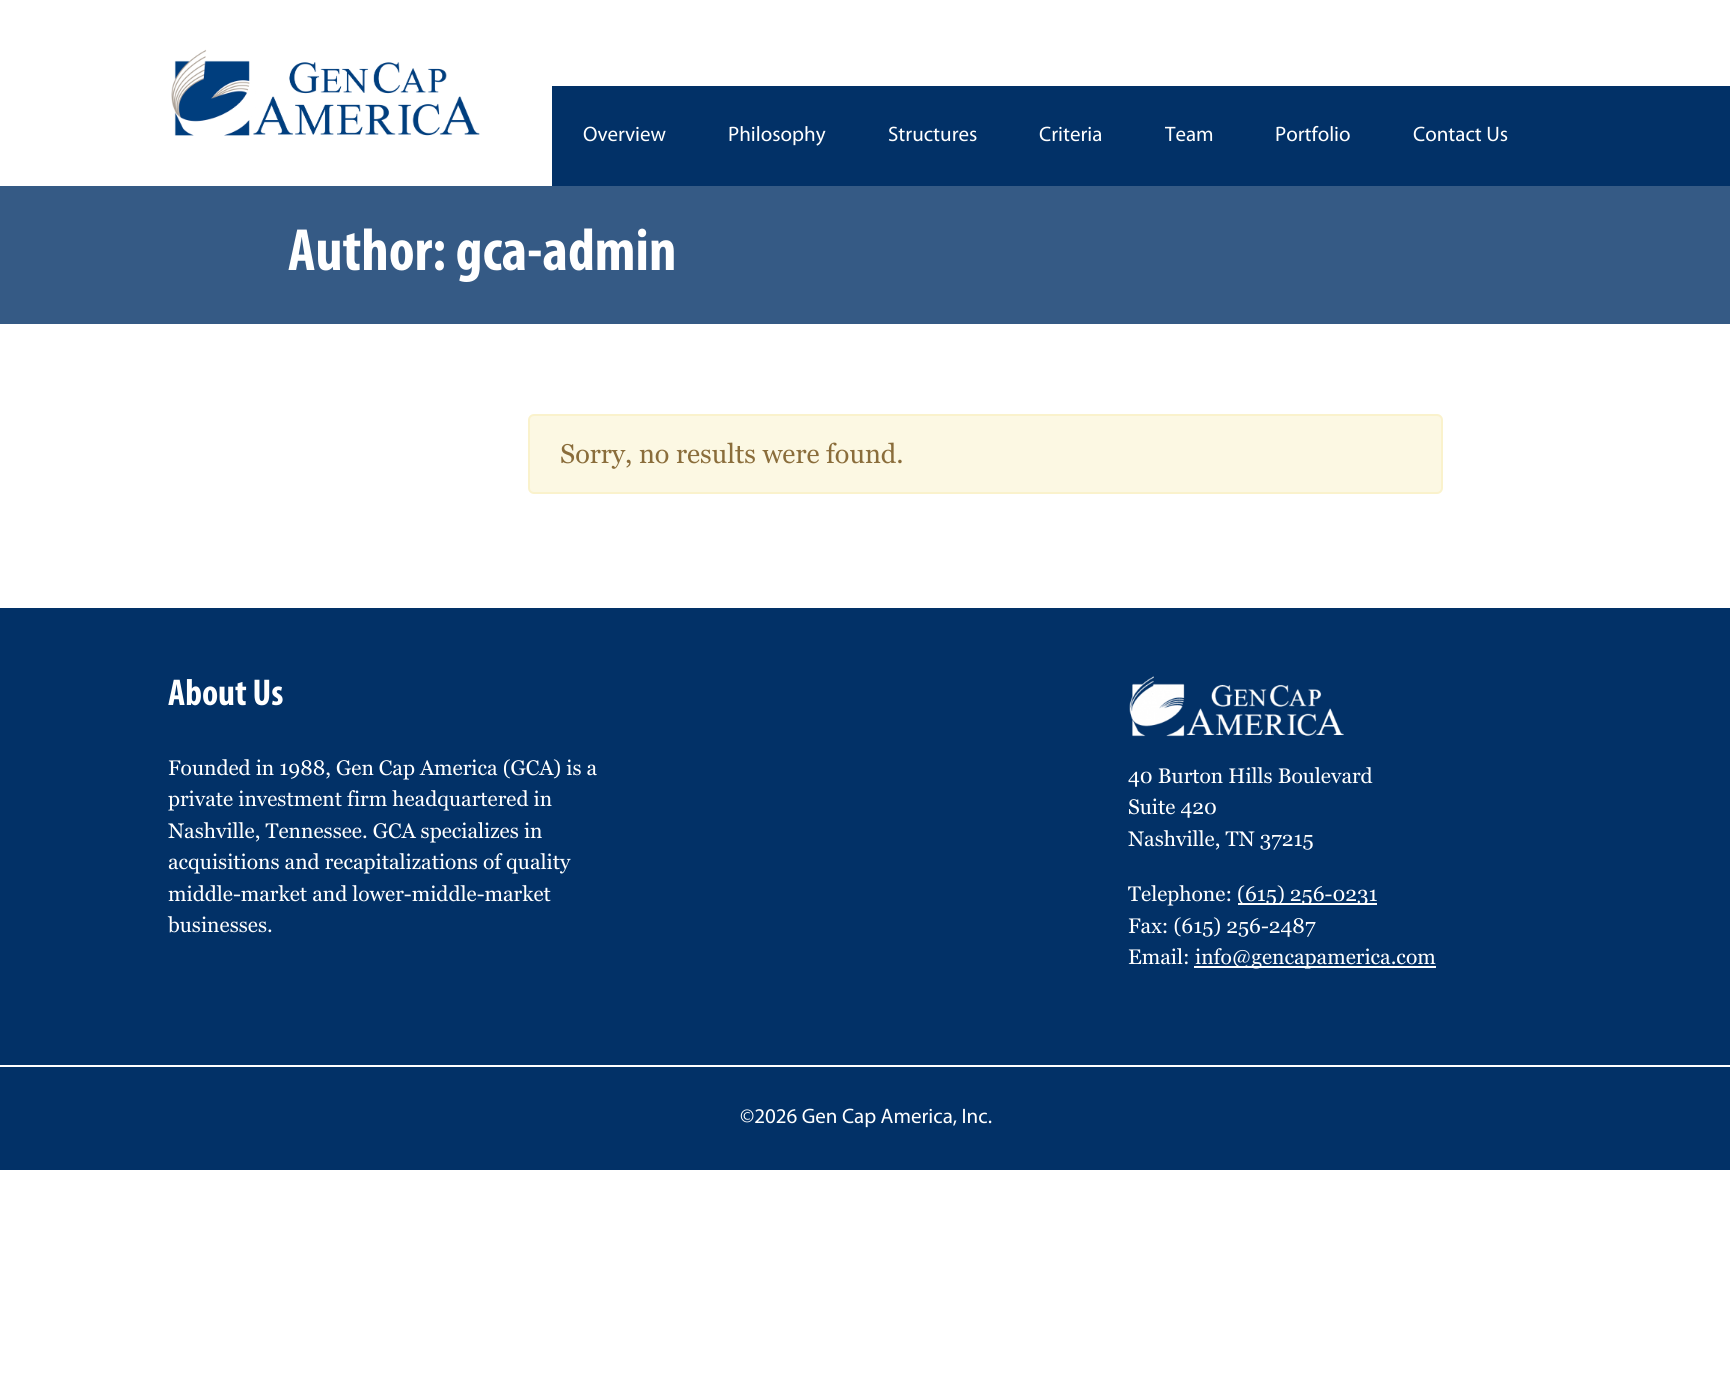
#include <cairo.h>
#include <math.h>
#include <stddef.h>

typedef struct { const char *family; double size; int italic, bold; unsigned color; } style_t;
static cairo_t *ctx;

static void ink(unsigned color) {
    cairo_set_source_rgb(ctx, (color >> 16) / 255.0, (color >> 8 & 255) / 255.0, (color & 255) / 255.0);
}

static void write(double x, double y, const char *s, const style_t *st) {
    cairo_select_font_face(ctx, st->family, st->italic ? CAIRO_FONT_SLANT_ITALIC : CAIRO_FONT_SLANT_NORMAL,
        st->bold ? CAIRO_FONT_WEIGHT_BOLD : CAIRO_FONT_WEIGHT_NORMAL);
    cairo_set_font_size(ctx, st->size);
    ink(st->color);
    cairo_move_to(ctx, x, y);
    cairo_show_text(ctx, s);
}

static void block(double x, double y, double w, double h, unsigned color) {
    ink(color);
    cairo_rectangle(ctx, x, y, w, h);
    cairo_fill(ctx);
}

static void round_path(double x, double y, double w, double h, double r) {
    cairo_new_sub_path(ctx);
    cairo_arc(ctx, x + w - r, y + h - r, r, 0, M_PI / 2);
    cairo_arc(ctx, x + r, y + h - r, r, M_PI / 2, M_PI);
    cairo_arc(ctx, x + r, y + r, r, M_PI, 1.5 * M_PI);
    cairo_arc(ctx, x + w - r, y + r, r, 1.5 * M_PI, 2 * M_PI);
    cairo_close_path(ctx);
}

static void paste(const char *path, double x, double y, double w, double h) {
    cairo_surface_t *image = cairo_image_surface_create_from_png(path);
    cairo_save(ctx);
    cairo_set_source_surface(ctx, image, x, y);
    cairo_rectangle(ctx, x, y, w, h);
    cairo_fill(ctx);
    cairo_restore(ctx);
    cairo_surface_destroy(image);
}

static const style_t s1 = {"Myriad", 21, 0, 0, 0xffffff};
static const style_t s2 = {"Myriad", 60, 0, 1, 0xffffff};
static const style_t s3 = {"Georgia", 27, 0, 0, 0x8a6d3b};
static const style_t s4 = {"Myriad", 37.5, 0, 1, 0xffffff};
static const style_t s5 = {"Georgia", 21, 0, 0, 0xffffff};

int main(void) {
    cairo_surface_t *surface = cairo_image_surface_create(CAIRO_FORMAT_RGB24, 1730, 1387);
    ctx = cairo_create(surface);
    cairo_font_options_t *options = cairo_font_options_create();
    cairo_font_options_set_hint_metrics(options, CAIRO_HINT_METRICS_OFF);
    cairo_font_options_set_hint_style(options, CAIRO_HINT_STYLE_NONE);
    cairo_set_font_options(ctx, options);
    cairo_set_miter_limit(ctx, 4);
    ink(0xffffff);
    cairo_paint(ctx);
    paste("pic1.png", 171, 49, 309, 87);
    block(552, 86, 1178, 100, 0x023167);
    write(583, 141, "Overview", &s1);
    write(728, 141, "Philosophy", &s1);
    write(888, 141, "Structures", &s1);
    write(1039, 141, "Criteria", &s1);
    write(1165, 141, "Team", &s1);
    write(1275, 141, "Portfolio", &s1);
    write(1413, 141, "Contact Us", &s1);
    block(0, 186, 1730, 138, 0x355a85);
    write(288, 270, "Author: gca-admin", &s2);
    ink(0xfcf8e3);
    round_path(529, 415, 913, 78, 5);
    cairo_fill_preserve(ctx);
    ink(0xfaf2cc);
    cairo_stroke(ctx);
    write(560, 463, "Sorry, no results were found.", &s3);
    block(0, 608, 1730, 562, 0x023167);
    write(168, 705, "About Us", &s4);
    write(168, 775, "Founded in 1988, Gen Cap America (GCA) is a", &s5);
    write(168, 806, "private investment firm headquartered in", &s5);
    write(168, 838, "Nashville, Tennessee. GCA specializes in", &s5);
    write(168, 869, "acquisitions and recapitalizations of quality", &s5);
    write(168, 901, "middle-market and lower-middle-market", &s5);
    write(168, 932, "businesses.", &s5);
    paste("pic2.png", 1129, 676, 215, 61);
    write(1128, 783, "40 Burton Hills Boulevard", &s5);
    write(1128, 814, "Suite 420", &s5);
    write(1128, 846, "Nashville, TN 37215", &s5);
    write(1128, 901, "Telephone:", &s5);
    block(1238, 903, 139, 2, 0xffffff);
    write(1237, 901, "(615) 256-0231", &s5);
    write(1128, 933, "Fax: (615) 256-2487", &s5);
    write(1128, 964, "Email:", &s5);
    block(1194, 966, 242, 2, 0xffffff);
    write(1195, 964, "info@gencapamerica.com", &s5);
    block(0, 1065, 1730, 2, 0xffffff);
    write(740, 1123, "©2026 Gen Cap America, Inc.", &s1);
    cairo_surface_write_to_png(surface, "screenshot.png");
    cairo_font_options_destroy(options);
    cairo_destroy(ctx);
    cairo_surface_destroy(surface);
    return 0;
}
